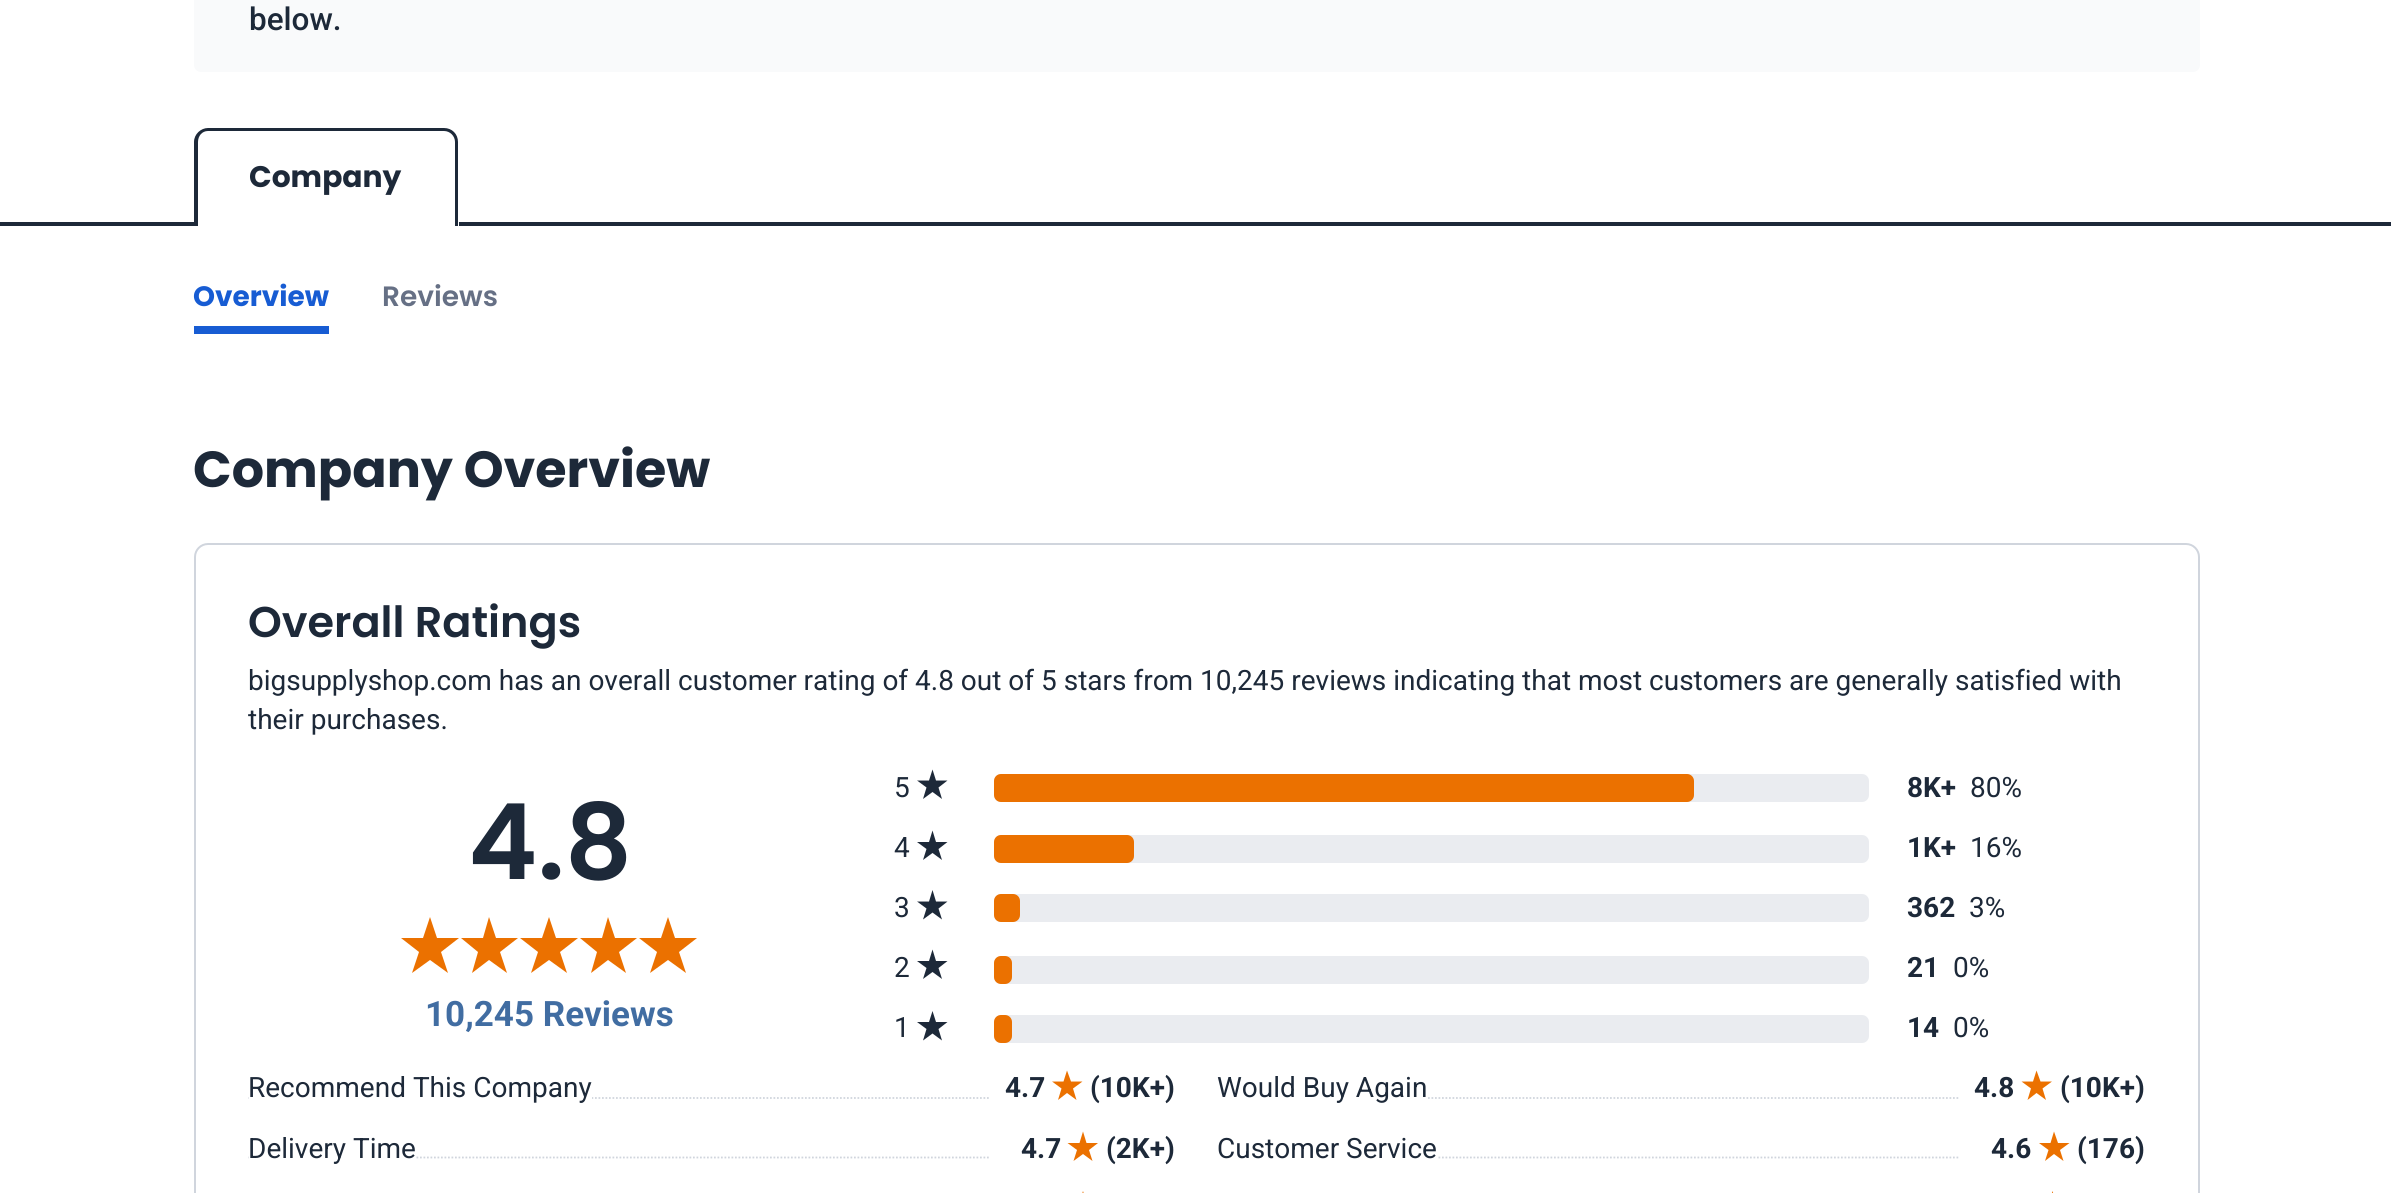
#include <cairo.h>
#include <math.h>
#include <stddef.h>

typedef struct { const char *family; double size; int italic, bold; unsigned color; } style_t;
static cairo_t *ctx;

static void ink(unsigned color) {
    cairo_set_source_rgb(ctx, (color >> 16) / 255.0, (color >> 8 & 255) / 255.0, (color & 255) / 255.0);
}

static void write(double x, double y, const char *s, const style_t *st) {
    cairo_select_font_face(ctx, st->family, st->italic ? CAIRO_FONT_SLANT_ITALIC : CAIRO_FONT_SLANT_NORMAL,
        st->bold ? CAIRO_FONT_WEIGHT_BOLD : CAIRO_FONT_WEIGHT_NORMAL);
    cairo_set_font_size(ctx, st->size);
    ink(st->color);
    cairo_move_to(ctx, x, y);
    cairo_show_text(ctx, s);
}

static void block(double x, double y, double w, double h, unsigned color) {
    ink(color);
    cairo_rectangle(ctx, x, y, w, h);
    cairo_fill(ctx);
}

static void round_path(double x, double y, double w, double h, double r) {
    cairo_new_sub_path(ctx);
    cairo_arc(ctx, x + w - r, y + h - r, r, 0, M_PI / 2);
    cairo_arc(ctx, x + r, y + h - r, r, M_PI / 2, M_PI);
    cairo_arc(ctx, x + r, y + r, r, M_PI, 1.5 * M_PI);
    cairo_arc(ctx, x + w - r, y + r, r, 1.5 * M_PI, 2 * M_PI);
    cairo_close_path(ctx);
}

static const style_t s1 = {"Roboto Medium", 31.5, 0, 0, 0x1d2939};
static const style_t s2 = {"Poppins", 29.75, 0, 1, 0x1d2939};
static const style_t s3 = {"Poppins", 28, 0, 1, 0x175cd3};
static const style_t s4 = {"Poppins SemiBold", 28, 0, 0, 0x667085};
static const style_t s5 = {"Poppins", 50.75, 0, 1, 0x1d2939};
static const style_t s6 = {"Poppins SemiBold", 43, 0, 0, 0x1d2939};
static const style_t s7 = {"Roboto", 28, 0, 0, 0x1d2939};
static const style_t s8 = {"Poppins SemiBold", 105, 0, 0, 0x1d2939};
static const style_t s9 = {"Roboto", 35, 0, 1, 0x416da2};
static const style_t s10 = {"Roboto", 28, 0, 1, 0x1d2939};

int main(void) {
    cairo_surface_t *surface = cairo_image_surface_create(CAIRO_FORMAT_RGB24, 2391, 1193);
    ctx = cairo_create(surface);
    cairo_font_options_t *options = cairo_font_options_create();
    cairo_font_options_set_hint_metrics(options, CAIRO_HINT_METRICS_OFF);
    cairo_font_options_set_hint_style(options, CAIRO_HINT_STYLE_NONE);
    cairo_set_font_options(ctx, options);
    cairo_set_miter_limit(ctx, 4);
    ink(0xffffff);
    cairo_paint(ctx);
    ink(0xf9fafb);
    round_path(194, -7, 2006, 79, 7);
    cairo_fill(ctx);
    write(249, 30, "below.", &s1);
    block(0, 222, 2391, 4, 0x1d2939);
    ink(0xffffff);
    cairo_new_path(ctx);
    cairo_move_to(ctx, 208, 128);
    cairo_line_to(ctx, 445, 128);
    cairo_curve_to(ctx, 452.5, 128, 459, 134.5, 459, 142);
    cairo_line_to(ctx, 459, 226);
    cairo_line_to(ctx, 194, 226);
    cairo_line_to(ctx, 194, 142);
    cairo_curve_to(ctx, 194, 134.5, 200.5, 128, 208, 128);
    cairo_close_path(ctx);
    cairo_fill(ctx);
    ink(0x1d2939);
    cairo_set_fill_rule(ctx, CAIRO_FILL_RULE_EVEN_ODD);
    cairo_new_path(ctx);
    cairo_move_to(ctx, 208, 128);
    cairo_line_to(ctx, 444, 128);
    cairo_curve_to(ctx, 452, 128, 458, 134, 458, 142);
    cairo_line_to(ctx, 458, 226);
    cairo_line_to(ctx, 194, 226);
    cairo_line_to(ctx, 194, 142);
    cairo_curve_to(ctx, 194, 134, 201, 128, 208, 128);
    cairo_close_path(ctx);
    cairo_move_to(ctx, 208, 131);
    cairo_line_to(ctx, 444, 131);
    cairo_curve_to(ctx, 450, 131, 455, 136, 455, 142);
    cairo_line_to(ctx, 455, 226);
    cairo_line_to(ctx, 198, 226);
    cairo_line_to(ctx, 198, 142);
    cairo_curve_to(ctx, 198, 136, 202, 131, 208, 131);
    cairo_close_path(ctx);
    cairo_fill(ctx);
    write(249, 187, "Company", &s2);
    write(193, 306, "Overview", &s3);
    block(194, 326, 135, 8, 0x175cd3);
    write(382, 306, "Reviews", &s4);
    write(193, 487, "Company Overview", &s5);
    round_path(195, 544, 2004, 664, 13);
    ink(0xd0d5dd);
    cairo_stroke(ctx);
    write(248, 637, "Overall Ratings", &s6);
    write(248, 690, "bigsupplyshop.com has an overall customer rating of 4.8 out of 5 stars from 10,245 reviews indicating that most customers are generally satisfied with", &s7);
    write(248, 729, "their purchases.", &s7);
    write(468, 879, "4.8", &s8);
    ink(0xeb7100);
    cairo_set_fill_rule(ctx, CAIRO_FILL_RULE_WINDING);
    cairo_new_path(ctx);
    cairo_move_to(ctx, 430, 917);
    cairo_line_to(ctx, 437, 938);
    cairo_line_to(ctx, 459, 938);
    cairo_line_to(ctx, 441, 952);
    cairo_line_to(ctx, 448, 973);
    cairo_line_to(ctx, 430, 960);
    cairo_line_to(ctx, 412, 973);
    cairo_line_to(ctx, 419, 952);
    cairo_line_to(ctx, 401, 938);
    cairo_line_to(ctx, 423, 938);
    cairo_close_path(ctx);
    cairo_fill(ctx);
    cairo_new_path(ctx);
    cairo_move_to(ctx, 489, 917);
    cairo_line_to(ctx, 496, 938);
    cairo_line_to(ctx, 518, 938);
    cairo_line_to(ctx, 500, 952);
    cairo_line_to(ctx, 507, 973);
    cairo_line_to(ctx, 489, 960);
    cairo_line_to(ctx, 472, 973);
    cairo_line_to(ctx, 478, 952);
    cairo_line_to(ctx, 461, 938);
    cairo_line_to(ctx, 483, 938);
    cairo_close_path(ctx);
    cairo_fill(ctx);
    cairo_new_path(ctx);
    cairo_move_to(ctx, 549, 917);
    cairo_line_to(ctx, 556, 938);
    cairo_line_to(ctx, 578, 938);
    cairo_line_to(ctx, 560, 952);
    cairo_line_to(ctx, 567, 973);
    cairo_line_to(ctx, 549, 960);
    cairo_line_to(ctx, 531, 973);
    cairo_line_to(ctx, 538, 952);
    cairo_line_to(ctx, 520, 938);
    cairo_line_to(ctx, 542, 938);
    cairo_close_path(ctx);
    cairo_fill(ctx);
    cairo_new_path(ctx);
    cairo_move_to(ctx, 608, 917);
    cairo_line_to(ctx, 615, 938);
    cairo_line_to(ctx, 637, 938);
    cairo_line_to(ctx, 619, 952);
    cairo_line_to(ctx, 626, 973);
    cairo_line_to(ctx, 608, 960);
    cairo_line_to(ctx, 591, 973);
    cairo_line_to(ctx, 597, 952);
    cairo_line_to(ctx, 580, 938);
    cairo_line_to(ctx, 602, 938);
    cairo_close_path(ctx);
    cairo_fill(ctx);
    cairo_new_path(ctx);
    cairo_move_to(ctx, 668, 917);
    cairo_line_to(ctx, 675, 938);
    cairo_line_to(ctx, 697, 938);
    cairo_line_to(ctx, 679, 952);
    cairo_line_to(ctx, 686, 973);
    cairo_line_to(ctx, 668, 960);
    cairo_line_to(ctx, 650, 973);
    cairo_line_to(ctx, 657, 952);
    cairo_line_to(ctx, 639, 938);
    cairo_line_to(ctx, 661, 938);
    cairo_close_path(ctx);
    cairo_fill(ctx);
    write(425, 1026, "10,245 Reviews", &s9);
    write(894, 797, "5", &s7);
    cairo_new_path(ctx);
    cairo_move_to(ctx, 932.5, 769.5);
    cairo_line_to(ctx, 936, 780.5);
    cairo_line_to(ctx, 947.5, 780.5);
    cairo_line_to(ctx, 938.5, 787.5);
    cairo_line_to(ctx, 942, 799);
    cairo_line_to(ctx, 932.5, 792);
    cairo_line_to(ctx, 923, 799);
    cairo_line_to(ctx, 926.5, 787.5);
    cairo_line_to(ctx, 917, 780.5);
    cairo_line_to(ctx, 929, 780.5);
    cairo_close_path(ctx);
    cairo_fill(ctx);
    ink(0xeaecf0);
    round_path(994, 774, 875, 28, 7);
    cairo_fill(ctx);
    ink(0xeb7100);
    round_path(994, 774, 700, 28, 7);
    cairo_fill(ctx);
    write(1907, 797, "8K+", &s10);
    write(1970, 797, "80%", &s7);
    write(894, 857, "4", &s7);
    cairo_new_path(ctx);
    cairo_move_to(ctx, 932.5, 830.5);
    cairo_line_to(ctx, 936, 842);
    cairo_line_to(ctx, 947.5, 842);
    cairo_line_to(ctx, 938.5, 849);
    cairo_line_to(ctx, 942, 860);
    cairo_line_to(ctx, 932.5, 853);
    cairo_line_to(ctx, 923, 860);
    cairo_line_to(ctx, 926.5, 849);
    cairo_line_to(ctx, 917, 842);
    cairo_line_to(ctx, 929, 842);
    cairo_close_path(ctx);
    cairo_fill(ctx);
    ink(0xeaecf0);
    round_path(994, 835, 875, 28, 7);
    cairo_fill(ctx);
    ink(0xeb7100);
    round_path(994, 835, 140, 28, 7);
    cairo_fill(ctx);
    write(1907, 857, "1K+", &s10);
    write(1970, 857, "16%", &s7);
    write(894, 917, "3", &s7);
    cairo_new_path(ctx);
    cairo_move_to(ctx, 932.5, 890);
    cairo_line_to(ctx, 936, 901.5);
    cairo_line_to(ctx, 947.5, 901.5);
    cairo_line_to(ctx, 938.5, 908.5);
    cairo_line_to(ctx, 942, 919.5);
    cairo_line_to(ctx, 932.5, 912.5);
    cairo_line_to(ctx, 923, 919.5);
    cairo_line_to(ctx, 926.5, 908.5);
    cairo_line_to(ctx, 917, 901.5);
    cairo_line_to(ctx, 929, 901.5);
    cairo_close_path(ctx);
    cairo_fill(ctx);
    ink(0xeaecf0);
    round_path(994, 894, 875, 28, 7);
    cairo_fill(ctx);
    ink(0xeb7100);
    round_path(994, 894, 26, 28, 7);
    cairo_fill(ctx);
    write(1907, 917, "362", &s10);
    write(1969, 917, "3%", &s7);
    write(894, 977, "2", &s7);
    cairo_new_path(ctx);
    cairo_move_to(ctx, 932.5, 949.5);
    cairo_line_to(ctx, 936, 961);
    cairo_line_to(ctx, 947.5, 961);
    cairo_line_to(ctx, 938.5, 968);
    cairo_line_to(ctx, 942, 979);
    cairo_line_to(ctx, 932.5, 972);
    cairo_line_to(ctx, 923, 979);
    cairo_line_to(ctx, 926.5, 968);
    cairo_line_to(ctx, 917, 961);
    cairo_line_to(ctx, 929, 961);
    cairo_close_path(ctx);
    cairo_fill(ctx);
    ink(0xeaecf0);
    round_path(994, 956, 875, 28, 7);
    cairo_fill(ctx);
    ink(0xeb7100);
    round_path(994, 956, 18, 28, 7);
    cairo_fill(ctx);
    write(1907, 977, "21", &s10);
    write(1953, 977, "0%", &s7);
    write(894, 1037, "1", &s7);
    cairo_new_path(ctx);
    cairo_move_to(ctx, 932.5, 1011);
    cairo_line_to(ctx, 936, 1022);
    cairo_line_to(ctx, 947.5, 1022);
    cairo_line_to(ctx, 938.5, 1029);
    cairo_line_to(ctx, 942, 1040.5);
    cairo_line_to(ctx, 932.5, 1033.5);
    cairo_line_to(ctx, 923, 1040.5);
    cairo_line_to(ctx, 926.5, 1029);
    cairo_line_to(ctx, 917, 1022);
    cairo_line_to(ctx, 929, 1022);
    cairo_close_path(ctx);
    cairo_fill(ctx);
    ink(0xeaecf0);
    round_path(994, 1015, 875, 28, 7);
    cairo_fill(ctx);
    ink(0xeb7100);
    round_path(994, 1015, 18, 28, 7);
    cairo_fill(ctx);
    write(1907, 1037, "14", &s10);
    write(1953, 1037, "0%", &s7);
    cairo_new_path(ctx);
    cairo_move_to(ctx, 248.5, 1098);
    cairo_line_to(ctx, 990.5, 1098);
    ink(0xd0d5dd);
    cairo_set_line_width(ctx, 1.8);
    cairo_set_dash(ctx, (double[]){1.75, 1.75}, 2, 0);
    cairo_stroke(ctx);
    block(249, 1097, 343, 2, 0xffffff);
    write(248, 1097, "Recommend This Company", &s7);
    write(1005, 1097, "4.7", &s10);
    ink(0xeb7100);
    cairo_new_path(ctx);
    cairo_move_to(ctx, 1067, 1070.5);
    cairo_line_to(ctx, 1071, 1081.5);
    cairo_line_to(ctx, 1082.5, 1081.5);
    cairo_line_to(ctx, 1073, 1088.5);
    cairo_line_to(ctx, 1076.5, 1100);
    cairo_line_to(ctx, 1067, 1093);
    cairo_line_to(ctx, 1058, 1100);
    cairo_line_to(ctx, 1061.5, 1088.5);
    cairo_line_to(ctx, 1052, 1081.5);
    cairo_line_to(ctx, 1063.5, 1081.5);
    cairo_close_path(ctx);
    cairo_fill(ctx);
    write(1090, 1097, "(10K+)", &s10);
    cairo_new_path(ctx);
    cairo_move_to(ctx, 1218, 1098);
    cairo_line_to(ctx, 1960, 1098);
    ink(0xd0d5dd);
    cairo_stroke(ctx);
    block(1218, 1097, 209, 2, 0xffffff);
    write(1217, 1097, "Would Buy Again", &s7);
    write(1974, 1097, "4.8", &s10);
    ink(0xeb7100);
    cairo_new_path(ctx);
    cairo_move_to(ctx, 2036.5, 1070.5);
    cairo_line_to(ctx, 2040.5, 1081.5);
    cairo_line_to(ctx, 2052, 1081.5);
    cairo_line_to(ctx, 2042.5, 1088.5);
    cairo_line_to(ctx, 2046, 1100);
    cairo_line_to(ctx, 2036.5, 1093);
    cairo_line_to(ctx, 2027.5, 1100);
    cairo_line_to(ctx, 2031, 1088.5);
    cairo_line_to(ctx, 2021.5, 1081.5);
    cairo_line_to(ctx, 2033, 1081.5);
    cairo_close_path(ctx);
    cairo_fill(ctx);
    write(2060, 1097, "(10K+)", &s10);
    cairo_new_path(ctx);
    cairo_move_to(ctx, 248.5, 1157.5);
    cairo_line_to(ctx, 990.5, 1157.5);
    ink(0xd0d5dd);
    cairo_stroke(ctx);
    block(249, 1156, 166, 3, 0xffffff);
    write(248, 1158, "Delivery Time", &s7);
    write(1021, 1158, "4.7", &s10);
    ink(0xeb7100);
    cairo_new_path(ctx);
    cairo_move_to(ctx, 1083, 1131.5);
    cairo_line_to(ctx, 1086.5, 1143);
    cairo_line_to(ctx, 1098, 1143);
    cairo_line_to(ctx, 1089, 1150);
    cairo_line_to(ctx, 1092.5, 1161);
    cairo_line_to(ctx, 1083, 1154);
    cairo_line_to(ctx, 1073.5, 1161);
    cairo_line_to(ctx, 1077, 1150);
    cairo_line_to(ctx, 1067.5, 1143);
    cairo_line_to(ctx, 1079.5, 1143);
    cairo_close_path(ctx);
    cairo_fill(ctx);
    write(1106, 1158, "(2K+)", &s10);
    cairo_new_path(ctx);
    cairo_move_to(ctx, 1218, 1157.5);
    cairo_line_to(ctx, 1960, 1157.5);
    ink(0xd0d5dd);
    cairo_stroke(ctx);
    block(1218, 1156, 219, 3, 0xffffff);
    write(1217, 1158, "Customer Service", &s7);
    write(1991, 1158, "4.6", &s10);
    ink(0xeb7100);
    cairo_new_path(ctx);
    cairo_move_to(ctx, 2054, 1131.5);
    cairo_line_to(ctx, 2058, 1143);
    cairo_line_to(ctx, 2069.5, 1143);
    cairo_line_to(ctx, 2060, 1150);
    cairo_line_to(ctx, 2063.5, 1161);
    cairo_line_to(ctx, 2054, 1154);
    cairo_line_to(ctx, 2045, 1161);
    cairo_line_to(ctx, 2048.5, 1150);
    cairo_line_to(ctx, 2039, 1143);
    cairo_line_to(ctx, 2050.5, 1143);
    cairo_close_path(ctx);
    cairo_fill(ctx);
    write(2077, 1158, "(176)", &s10);
    ink(0xeb7100);
    cairo_new_path(ctx);
    cairo_move_to(ctx, 1083, 1191);
    cairo_line_to(ctx, 1086.5, 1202.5);
    cairo_line_to(ctx, 1098, 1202.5);
    cairo_line_to(ctx, 1089, 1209.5);
    cairo_line_to(ctx, 1092.5, 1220.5);
    cairo_line_to(ctx, 1083, 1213.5);
    cairo_line_to(ctx, 1073.5, 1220.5);
    cairo_line_to(ctx, 1077, 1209.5);
    cairo_line_to(ctx, 1067.5, 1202.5);
    cairo_line_to(ctx, 1079.5, 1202.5);
    cairo_close_path(ctx);
    cairo_fill(ctx);
    cairo_new_path(ctx);
    cairo_move_to(ctx, 2052.5, 1191);
    cairo_line_to(ctx, 2056, 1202.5);
    cairo_line_to(ctx, 2067.5, 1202.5);
    cairo_line_to(ctx, 2058.5, 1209.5);
    cairo_line_to(ctx, 2062, 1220.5);
    cairo_line_to(ctx, 2052.5, 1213.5);
    cairo_line_to(ctx, 2043, 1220.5);
    cairo_line_to(ctx, 2046.5, 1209.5);
    cairo_line_to(ctx, 2037, 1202.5);
    cairo_line_to(ctx, 2049, 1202.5);
    cairo_close_path(ctx);
    cairo_fill(ctx);
    cairo_surface_write_to_png(surface, "screenshot.png");
    cairo_font_options_destroy(options);
    cairo_destroy(ctx);
    cairo_surface_destroy(surface);
    return 0;
}
